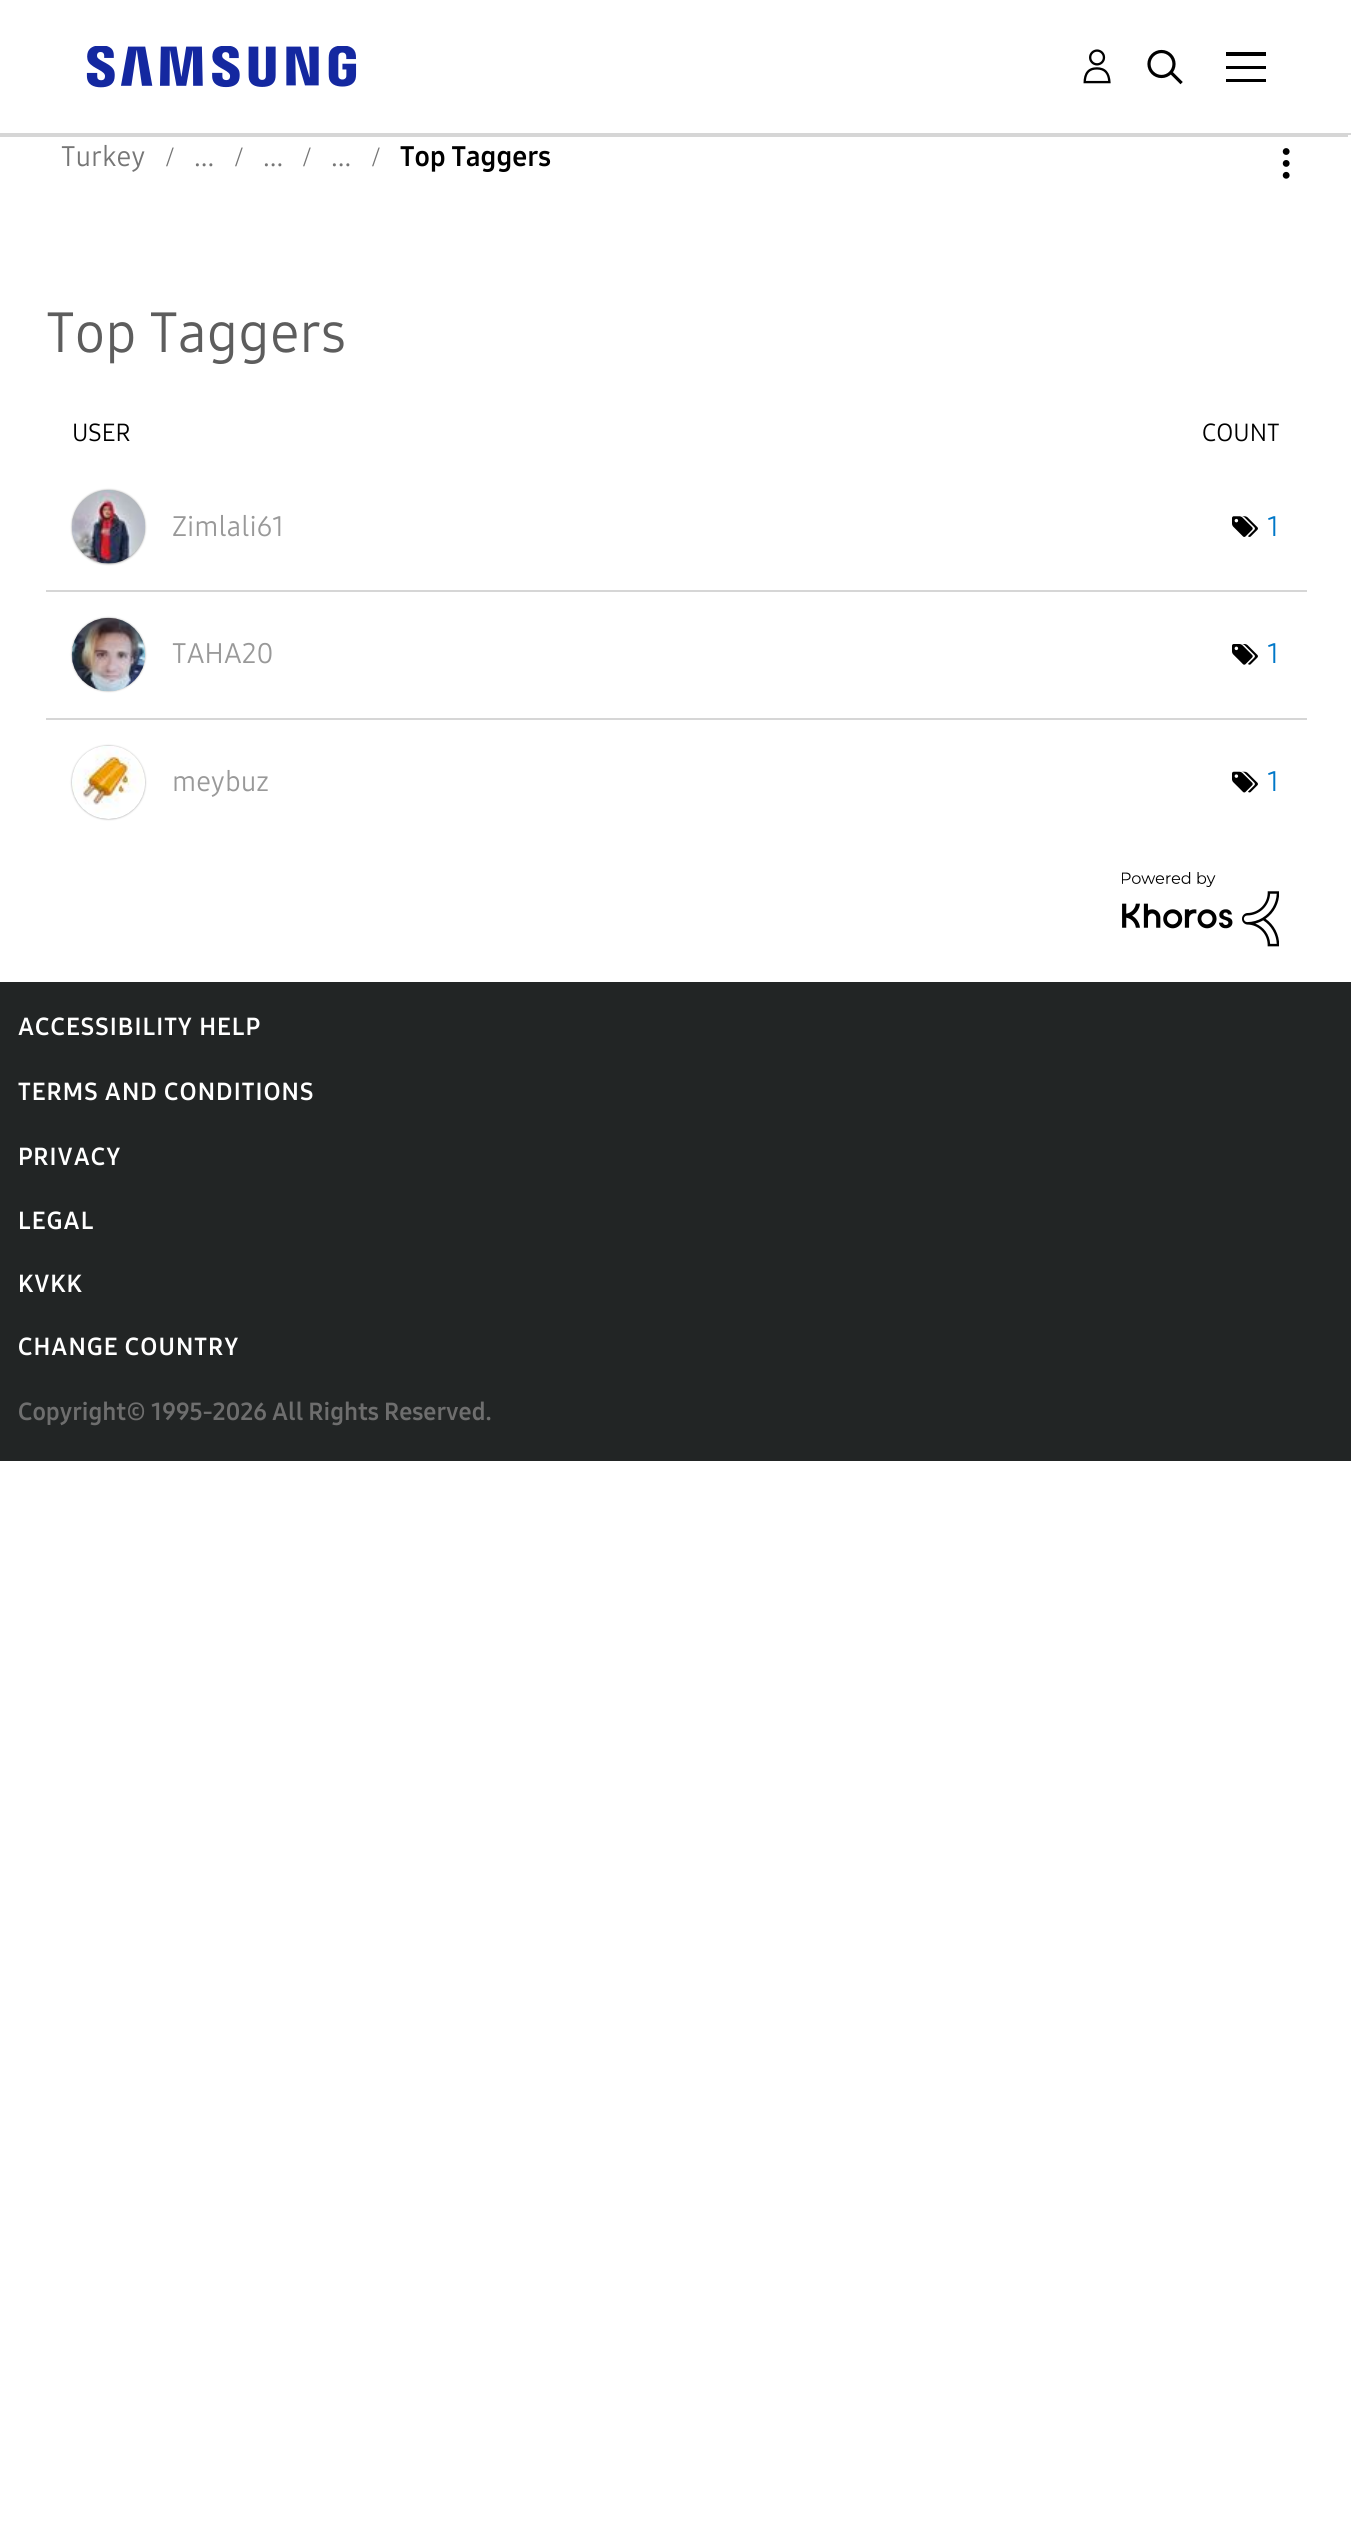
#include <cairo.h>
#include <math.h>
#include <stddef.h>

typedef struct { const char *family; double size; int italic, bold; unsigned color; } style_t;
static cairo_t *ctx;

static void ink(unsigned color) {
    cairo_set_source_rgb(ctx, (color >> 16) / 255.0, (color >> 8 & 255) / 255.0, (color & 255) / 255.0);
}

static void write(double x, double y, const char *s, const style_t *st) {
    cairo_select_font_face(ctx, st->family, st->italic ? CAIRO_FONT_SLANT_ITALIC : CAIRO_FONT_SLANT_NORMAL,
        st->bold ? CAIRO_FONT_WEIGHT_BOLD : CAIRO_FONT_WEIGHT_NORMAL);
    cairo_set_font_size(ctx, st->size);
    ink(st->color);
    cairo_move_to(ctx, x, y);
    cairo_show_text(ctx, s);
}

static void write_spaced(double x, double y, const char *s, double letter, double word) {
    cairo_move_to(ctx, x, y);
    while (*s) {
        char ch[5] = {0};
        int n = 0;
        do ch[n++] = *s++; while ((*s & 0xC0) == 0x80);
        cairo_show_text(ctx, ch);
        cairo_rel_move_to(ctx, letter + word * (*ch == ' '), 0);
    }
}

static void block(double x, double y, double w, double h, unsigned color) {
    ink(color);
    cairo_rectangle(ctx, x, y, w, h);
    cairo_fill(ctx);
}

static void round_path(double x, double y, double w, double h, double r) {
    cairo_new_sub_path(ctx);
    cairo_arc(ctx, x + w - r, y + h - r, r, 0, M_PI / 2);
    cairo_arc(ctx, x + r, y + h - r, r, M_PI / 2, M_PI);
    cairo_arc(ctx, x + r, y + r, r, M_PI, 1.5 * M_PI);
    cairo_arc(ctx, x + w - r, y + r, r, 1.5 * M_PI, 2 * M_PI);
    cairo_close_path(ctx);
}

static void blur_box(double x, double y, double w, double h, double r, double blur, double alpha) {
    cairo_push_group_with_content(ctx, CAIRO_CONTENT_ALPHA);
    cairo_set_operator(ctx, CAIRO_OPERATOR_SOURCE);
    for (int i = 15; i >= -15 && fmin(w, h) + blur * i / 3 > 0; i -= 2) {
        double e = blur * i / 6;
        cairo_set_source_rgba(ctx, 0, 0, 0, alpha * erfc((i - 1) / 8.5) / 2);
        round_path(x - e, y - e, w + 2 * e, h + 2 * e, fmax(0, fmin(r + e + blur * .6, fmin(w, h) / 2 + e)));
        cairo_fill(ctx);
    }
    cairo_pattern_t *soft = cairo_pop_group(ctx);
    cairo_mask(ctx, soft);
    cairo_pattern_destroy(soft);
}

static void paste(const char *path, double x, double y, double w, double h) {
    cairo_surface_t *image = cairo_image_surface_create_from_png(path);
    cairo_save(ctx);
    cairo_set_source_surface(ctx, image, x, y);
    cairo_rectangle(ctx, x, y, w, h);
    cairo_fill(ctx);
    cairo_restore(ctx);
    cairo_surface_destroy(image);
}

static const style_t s1 = {"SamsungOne", 28, 0, 0, 0x767676};
static const style_t s2 = {"Liberation Serif", 28, 0, 0, 0x767676};
static const style_t s3 = {"SamsungOne", 28, 0, 1, 0x000000};
static const style_t s4 = {"SamsungOne", 56, 0, 0, 0x5d5d5d};
static const style_t s5 = {"SamsungOne", 24.5, 0, 0, 0x000000};
static const style_t s6 = {"SamsungOne", 28, 0, 0, 0x999999};
static const style_t s7 = {"SamsungOne", 28, 0, 0, 0x0077c8};
static const style_t s8 = {"SamsungOne", 24.5, 0, 1, 0x6e6e6e};

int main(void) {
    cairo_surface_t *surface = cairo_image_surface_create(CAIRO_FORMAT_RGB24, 1351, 2526);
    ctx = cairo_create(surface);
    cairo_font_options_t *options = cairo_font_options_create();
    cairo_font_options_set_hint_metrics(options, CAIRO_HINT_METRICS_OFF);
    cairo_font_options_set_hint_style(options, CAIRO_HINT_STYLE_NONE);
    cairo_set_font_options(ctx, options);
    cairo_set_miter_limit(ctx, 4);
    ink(0xffffff);
    cairo_paint(ctx);
    block(0, 133, 1351, 2, 0xd6d6d6);
    paste("pic1.png", 86, 46, 271, 42);
    paste("pic2.png", 1083, 49, 28, 35);
    cairo_arc(ctx, 1161.5, 64, 12.5, 0, 2 * M_PI);
    ink(0x000000);
    cairo_set_line_width(ctx, 3.2);
    cairo_stroke(ctx);
    cairo_new_path(ctx);
    cairo_move_to(ctx, 1172.5, 74);
    cairo_line_to(ctx, 1180.5, 82);
    cairo_set_line_cap(ctx, CAIRO_LINE_CAP_SQUARE);
    cairo_stroke(ctx);
    cairo_new_path(ctx);
    cairo_move_to(ctx, 1266, 79);
    cairo_line_to(ctx, 1266, 82);
    cairo_line_to(ctx, 1226, 82);
    cairo_line_to(ctx, 1226, 79);
    cairo_close_path(ctx);
    cairo_move_to(ctx, 1266, 66);
    cairo_line_to(ctx, 1266, 69);
    cairo_line_to(ctx, 1226, 69);
    cairo_line_to(ctx, 1226, 66);
    cairo_close_path(ctx);
    cairo_move_to(ctx, 1266, 52);
    cairo_line_to(ctx, 1266, 56);
    cairo_line_to(ctx, 1226, 56);
    cairo_line_to(ctx, 1226, 52);
    cairo_close_path(ctx);
    cairo_fill(ctx);
    block(0, 135, 1348, 2, 0xd6d6d6);
    write(61, 166, "Turkey", &s1);
    write(166, 166, "/", &s2);
    write(194, 166, "...", &s1);
    write(235, 166, "/", &s2);
    write(263, 166, "...", &s1);
    write(303, 166, "/", &s2);
    write(331, 166, "...", &s1);
    write(372, 166, "/", &s2);
    write(400, 166, "Top Taggers", &s3);
    paste("pic3.png", 1282, 148, 8, 31);
    write(46, 352, "Top Taggers", &s4);
    write(72, 441, "USER", &s5);
    write(1202, 441, "COUNT", &s5);
    ink(0x999999);
    blur_box(72, 490, 73, 74, 36.5, 1, 1);
    paste("pic4.png", 72, 490, 73, 74);
    write(172, 536, "Zimlali61", &s6);
    paste("pic5.png", 1232, 516, 26, 21);
    write(1267, 536, "1", &s7);
    block(46, 590, 1261, 2, 0xd6d6d6);
    ink(0x999999);
    blur_box(72, 618, 73, 73, 36.5, 1, 1);
    paste("pic6.png", 71, 617, 75, 74);
    write(172, 663, "TAHA20", &s6);
    paste("pic7.png", 1232, 644, 26, 21);
    write(1267, 663, "1", &s7);
    block(46, 718, 1261, 2, 0xd6d6d6);
    ink(0x999999);
    blur_box(72, 746, 73, 73, 36.5, 1, 1);
    paste("pic8.png", 72, 746, 73, 73);
    write(172, 791, "meybuz", &s6);
    paste("pic9.png", 1232, 771, 26, 22);
    write(1267, 791, "1", &s7);
    paste("pic10.png", 1122, 872, 157, 75);
    block(0, 982, 1351, 479, 0x222525);
    cairo_select_font_face(ctx, "SamsungOne", CAIRO_FONT_SLANT_NORMAL, CAIRO_FONT_WEIGHT_BOLD);
    cairo_set_font_size(ctx, 24.5);
    ink(0xffffff);
    write_spaced(18, 1035, "ACCESSIBILITY HELP", 1.05, 0);
    write_spaced(18, 1100, "TERMS AND CONDITIONS", 1.05, 0);
    write_spaced(18, 1165, "PRIVACY", 1.05, 0);
    write_spaced(18, 1229, "LEGAL", 1.05, 0);
    write_spaced(18, 1292, "KVKK", 1.05, 0);
    write_spaced(18, 1355, "CHANGE COUNTRY", 1.05, 0);
    write(18, 1420, "Copyright© 1995-2026 All Rights Reserved.", &s8);
    cairo_surface_write_to_png(surface, "screenshot.png");
    cairo_font_options_destroy(options);
    cairo_destroy(ctx);
    cairo_surface_destroy(surface);
    return 0;
}
